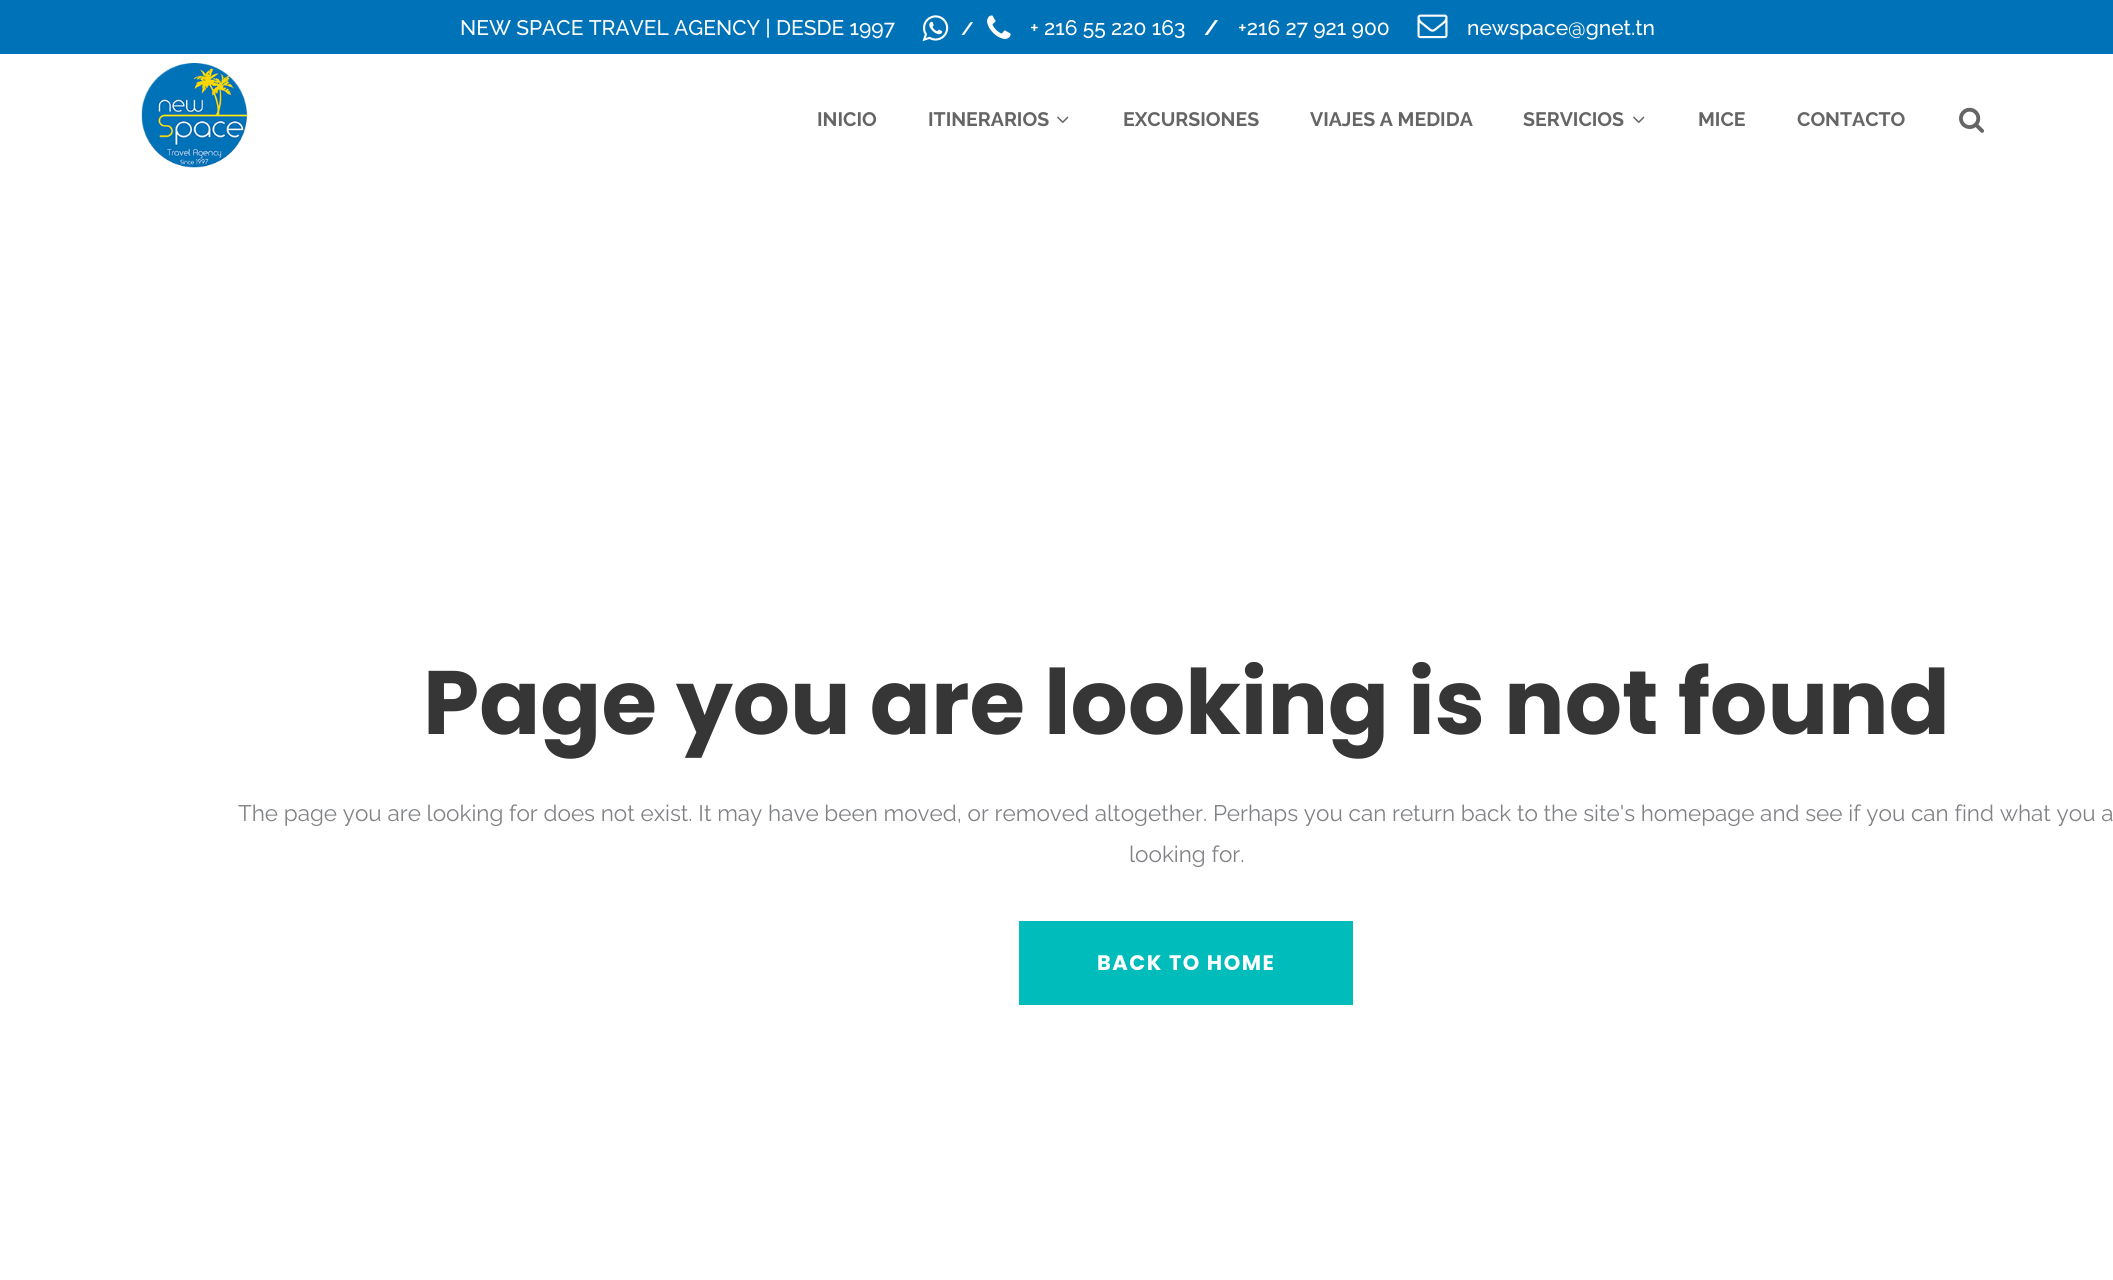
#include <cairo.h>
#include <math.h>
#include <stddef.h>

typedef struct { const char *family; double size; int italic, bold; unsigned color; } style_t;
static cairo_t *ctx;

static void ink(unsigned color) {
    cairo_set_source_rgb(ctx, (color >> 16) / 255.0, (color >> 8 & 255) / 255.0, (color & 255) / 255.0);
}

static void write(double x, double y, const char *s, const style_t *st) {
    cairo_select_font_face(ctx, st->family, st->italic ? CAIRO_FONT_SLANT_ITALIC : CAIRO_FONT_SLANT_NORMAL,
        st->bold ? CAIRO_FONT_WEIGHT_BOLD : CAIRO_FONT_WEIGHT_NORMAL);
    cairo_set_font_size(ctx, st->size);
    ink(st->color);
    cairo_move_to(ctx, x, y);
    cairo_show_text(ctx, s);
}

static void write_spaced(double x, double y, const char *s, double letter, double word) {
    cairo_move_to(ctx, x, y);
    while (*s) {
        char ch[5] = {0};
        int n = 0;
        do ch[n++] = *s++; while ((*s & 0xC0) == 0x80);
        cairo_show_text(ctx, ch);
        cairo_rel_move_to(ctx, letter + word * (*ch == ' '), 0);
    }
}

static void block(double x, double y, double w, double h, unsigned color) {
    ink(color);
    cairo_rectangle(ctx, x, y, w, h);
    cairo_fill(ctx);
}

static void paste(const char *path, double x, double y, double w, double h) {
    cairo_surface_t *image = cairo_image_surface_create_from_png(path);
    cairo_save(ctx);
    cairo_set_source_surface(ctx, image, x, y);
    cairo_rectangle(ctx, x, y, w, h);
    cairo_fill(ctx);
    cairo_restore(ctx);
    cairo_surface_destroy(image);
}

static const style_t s1 = {"Raleway Medium", 21, 0, 0, 0xffffff};
static const style_t s2 = {"Raleway", 18, 0, 1, 0xffffff};
static const style_t s3 = {"Raleway", 21, 0, 1, 0xffffff};
static const style_t s4 = {"Raleway", 19.5, 0, 1, 0x656565};
static const style_t s5 = {"Poppins", 90, 0, 1, 0x363636};
static const style_t s6 = {"Raleway", 22.5, 0, 0, 0x808285};

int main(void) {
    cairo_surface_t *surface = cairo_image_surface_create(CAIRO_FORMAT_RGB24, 2113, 1280);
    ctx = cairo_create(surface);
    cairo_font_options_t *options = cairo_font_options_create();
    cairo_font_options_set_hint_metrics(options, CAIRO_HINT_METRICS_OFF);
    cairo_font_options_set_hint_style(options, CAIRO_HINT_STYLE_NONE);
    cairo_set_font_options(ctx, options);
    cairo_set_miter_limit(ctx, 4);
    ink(0xffffff);
    cairo_paint(ctx);
    block(0, 0, 2113, 54, 0x0072b7);
    write(460, 35, "NEW SPACE TRAVEL AGENCY | DESDE 1997", &s1);
    paste("pic1.png", 922, 15, 27, 27);
    write(961, 35, "/", &s2);
    paste("pic2.png", 987, 15, 24, 24);
    write(1030, 35, "+ 216 55 220 163", &s1);
    write(1204, 35, "/", &s3);
    write(1238, 35, "+216 27 921 900", &s1);
    paste("pic3.png", 1417, 14, 31, 25);
    write(1467, 35, "newspace@gnet.tn", &s1);
    paste("pic4.png", 141, 63, 106, 105);
    write(817, 126, "INICIO", &s4);
    write(928, 126, "ITINERARIOS", &s4);
    paste("pic5.png", 1057, 116, 12, 7);
    write(1123, 126, "EXCURSIONES", &s4);
    write(1310, 126, "VIAJES A MEDIDA", &s4);
    write(1523, 126, "SERVICIOS", &s4);
    paste("pic5.png", 1633, 116, 12, 7);
    write(1698, 126, "MICE", &s4);
    write(1797, 126, "CONTACTO", &s4);
    paste("pic6.png", 1959, 107, 25, 26);
    write(423, 734, "Page you are looking is not found", &s5);
    write(238, 821, "The page you are looking for does not exist. It may have been moved, or removed altogether. Perhaps you can return back to the site's homepage and see if you can find what you a", &s6);
    write(1129, 862, "looking for.", &s6);
    block(1019, 921, 334, 84, 0x00bdbb);
    cairo_select_font_face(ctx, "Poppins", CAIRO_FONT_SLANT_NORMAL, CAIRO_FONT_WEIGHT_BOLD);
    cairo_set_font_size(ctx, 21);
    ink(0xffffff);
    write_spaced(1097, 970, "BACK TO HOME", 1.5, 0);
    cairo_surface_write_to_png(surface, "screenshot.png");
    cairo_font_options_destroy(options);
    cairo_destroy(ctx);
    cairo_surface_destroy(surface);
    return 0;
}
